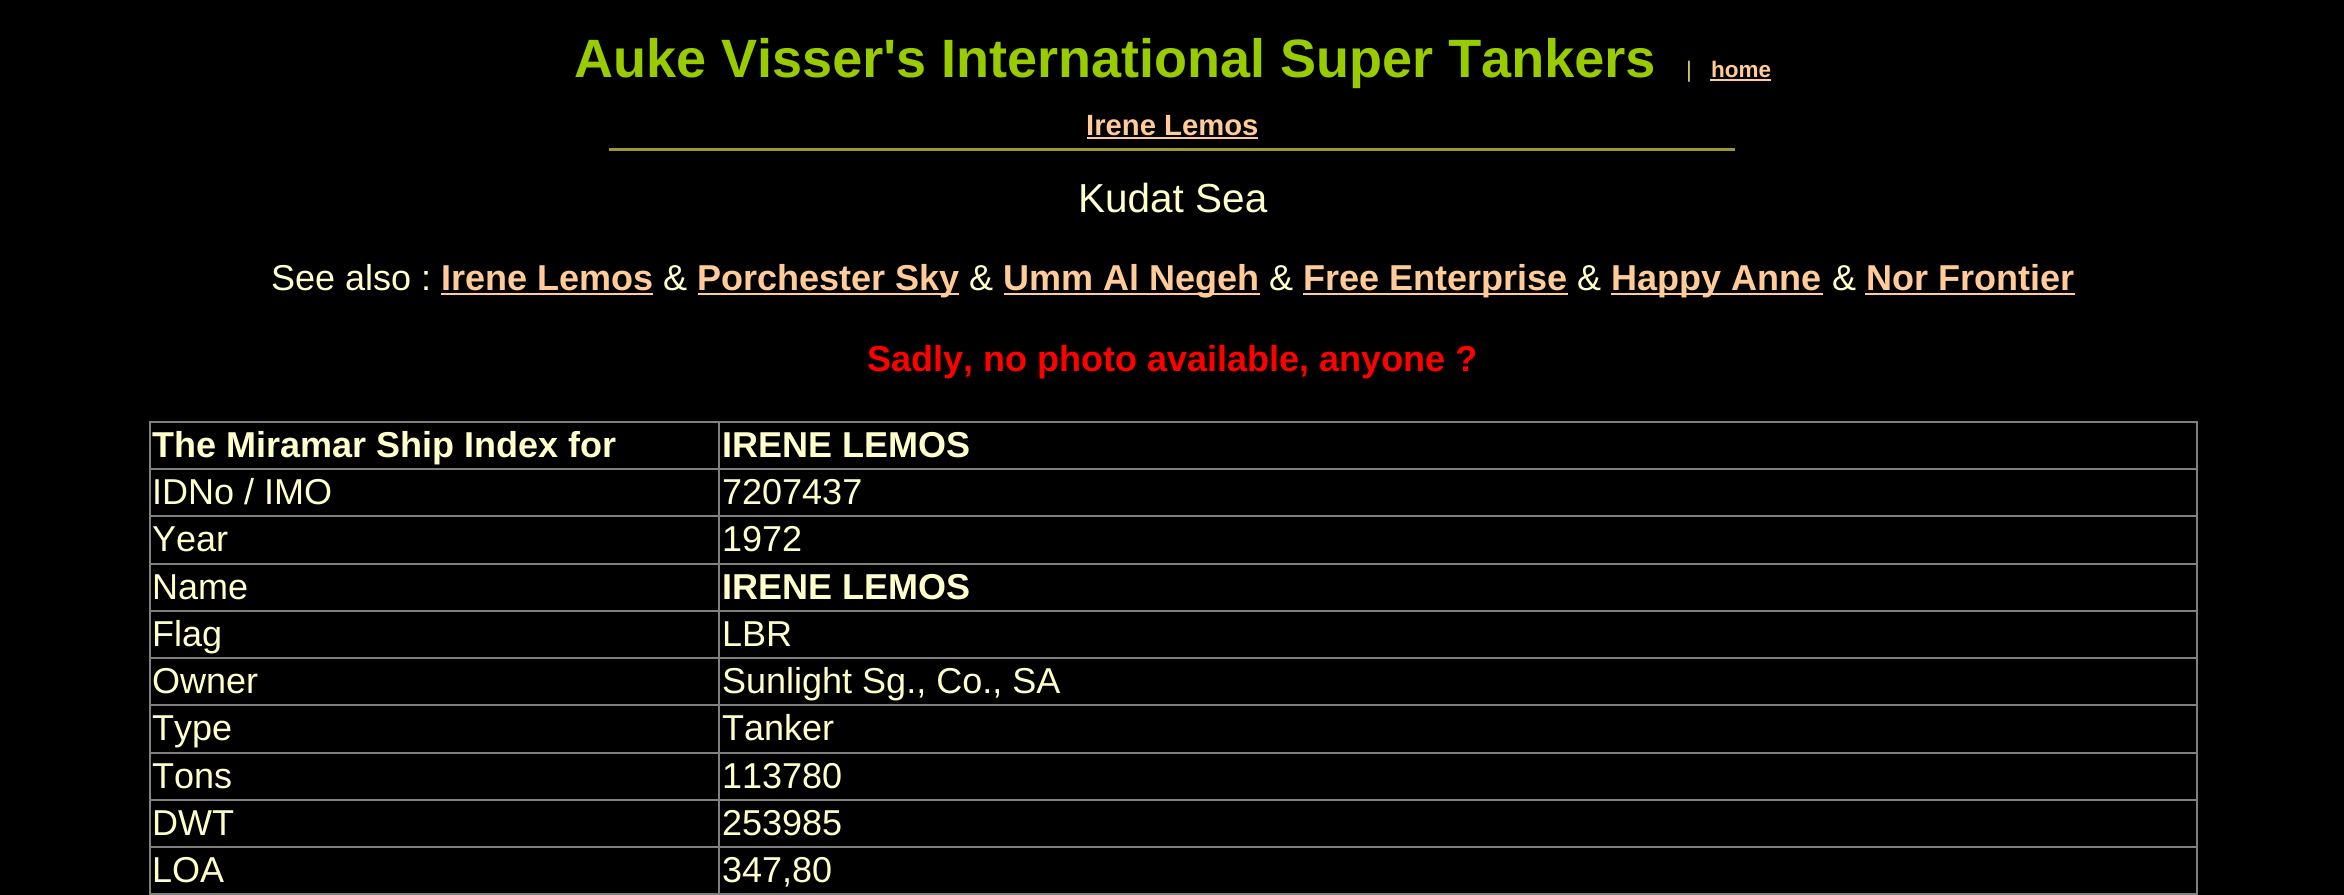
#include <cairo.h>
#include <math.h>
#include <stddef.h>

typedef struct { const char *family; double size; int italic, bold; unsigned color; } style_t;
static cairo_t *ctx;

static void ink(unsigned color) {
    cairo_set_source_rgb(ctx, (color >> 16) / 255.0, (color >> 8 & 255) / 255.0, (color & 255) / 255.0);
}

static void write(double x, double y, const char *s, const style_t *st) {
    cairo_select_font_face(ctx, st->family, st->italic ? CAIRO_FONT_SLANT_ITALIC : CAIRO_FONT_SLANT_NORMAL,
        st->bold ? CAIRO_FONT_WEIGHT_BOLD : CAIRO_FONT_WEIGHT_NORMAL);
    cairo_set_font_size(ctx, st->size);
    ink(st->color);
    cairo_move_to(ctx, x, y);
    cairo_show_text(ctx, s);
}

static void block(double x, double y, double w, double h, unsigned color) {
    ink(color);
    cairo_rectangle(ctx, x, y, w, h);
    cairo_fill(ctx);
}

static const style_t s1 = {"Liberation Sans", 54, 0, 1, 0x99cc00};
static const style_t s2 = {"Liberation Sans", 22.5, 0, 0, 0xcccc66};
static const style_t s3 = {"Liberation Sans", 22.5, 0, 1, 0xffcc99};
static const style_t s4 = {"Liberation Sans", 29.25, 0, 1, 0xffcc99};
static const style_t s5 = {"Liberation Sans", 40.5, 0, 0, 0xffffcc};
static const style_t s6 = {"Liberation Sans", 36, 0, 0, 0xffffcc};
static const style_t s7 = {"Liberation Sans", 36, 0, 1, 0xffcc99};
static const style_t s8 = {"Liberation Sans", 36, 0, 1, 0xff0000};
static const style_t s9 = {"Liberation Sans", 36, 0, 1, 0xffffcc};

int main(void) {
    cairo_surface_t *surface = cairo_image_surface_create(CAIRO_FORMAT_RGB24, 2344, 895);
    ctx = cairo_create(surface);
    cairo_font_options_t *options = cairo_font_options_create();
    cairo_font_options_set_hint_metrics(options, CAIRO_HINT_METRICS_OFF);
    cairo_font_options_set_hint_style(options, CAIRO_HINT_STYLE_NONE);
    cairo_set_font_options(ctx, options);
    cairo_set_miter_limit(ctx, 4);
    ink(0x000000);
    cairo_paint(ctx);
    write(574, 77, "Auke Visser's International Super Tankers", &s1);
    write(1686, 77, "|", &s2);
    write(1711, 77, "home", &s3);
    block(1710, 79, 61, 2, 0xffcc99);
    write(1086, 135, "Irene Lemos", &s4);
    block(1087, 137, 171, 2, 0xffcc99);
    block(609, 148, 1126, 3, 0x999933);
    write(1078, 212, "Kudat Sea", &s5);
    write(271, 290, "See also :", &s6);
    write(441, 290, "Irene Lemos", &s7);
    block(441, 293, 212, 2, 0xffcc99);
    write(663, 290, "&", &s6);
    block(698, 293, 261, 2, 0xffcc99);
    write(697, 290, "Porchester Sky", &s7);
    write(969, 290, "&", &s6);
    block(1004, 293, 256, 2, 0xffcc99);
    write(1003, 290, "Umm Al Negeh", &s7);
    write(1269, 290, "&", &s6);
    block(1303, 293, 265, 2, 0xffcc99);
    write(1303, 290, "Free Enterprise", &s7);
    write(1577, 290, "&", &s6);
    block(1611, 293, 212, 2, 0xffcc99);
    write(1611, 290, "Happy Anne", &s7);
    write(1832, 290, "&", &s6);
    write(1866, 290, "Nor Frontier", &s7);
    block(1865, 293, 210, 2, 0xffcc99);
    write(867, 371, "Sadly, no photo available, anyone ?", &s8);
    block(149, 421, 2049, 2, 0x808080);
    block(2196, 421, 2, 474, 0x808080);
    block(149, 421, 2, 474, 0x808080);
    write(152, 457, "The Miramar Ship Index for", &s9);
    block(718, 468, 1480, 2, 0x808080);
    block(718, 515, 1480, 2, 0x808080);
    block(718, 563, 1480, 2, 0x808080);
    block(718, 610, 1480, 2, 0x808080);
    block(718, 657, 1480, 2, 0x808080);
    block(718, 704, 1480, 2, 0x808080);
    block(718, 752, 1480, 2, 0x808080);
    block(718, 799, 1480, 2, 0x808080);
    block(718, 846, 1480, 2, 0x808080);
    block(149, 893, 2049, 2, 0x808080);
    block(718, 846, 2, 49, 0x808080);
    block(149, 846, 571, 2, 0x808080);
    block(718, 799, 2, 49, 0x808080);
    block(149, 799, 571, 2, 0x808080);
    block(718, 752, 2, 49, 0x808080);
    block(149, 752, 571, 2, 0x808080);
    block(718, 704, 2, 50, 0x808080);
    block(149, 704, 571, 2, 0x808080);
    block(718, 657, 2, 50, 0x808080);
    block(149, 657, 571, 2, 0x808080);
    block(718, 610, 2, 49, 0x808080);
    block(149, 610, 571, 2, 0x808080);
    block(718, 563, 2, 49, 0x808080);
    block(149, 563, 571, 2, 0x808080);
    block(718, 515, 2, 50, 0x808080);
    block(149, 515, 571, 2, 0x808080);
    block(718, 468, 2, 50, 0x808080);
    block(149, 468, 571, 2, 0x808080);
    block(718, 421, 2, 49, 0x808080);
    write(722, 457, "IRENE LEMOS", &s9);
    write(152, 504, "IDNo / IMO", &s6);
    write(722, 504, "7207437", &s6);
    write(152, 551, "Year", &s6);
    write(722, 551, "1972", &s6);
    write(152, 599, "Name", &s6);
    write(722, 599, "IRENE LEMOS", &s9);
    write(152, 646, "Flag", &s6);
    write(722, 646, "LBR", &s6);
    write(152, 693, "Owner", &s6);
    write(722, 693, "Sunlight Sg., Co., SA", &s6);
    write(152, 740, "Type", &s6);
    write(722, 740, "Tanker", &s6);
    write(152, 788, "Tons", &s6);
    write(722, 788, "113780", &s6);
    write(152, 835, "DWT", &s6);
    write(722, 835, "253985", &s6);
    write(152, 882, "LOA", &s6);
    write(722, 882, "347,80", &s6);
    cairo_surface_write_to_png(surface, "screenshot.png");
    cairo_font_options_destroy(options);
    cairo_destroy(ctx);
    cairo_surface_destroy(surface);
    return 0;
}
